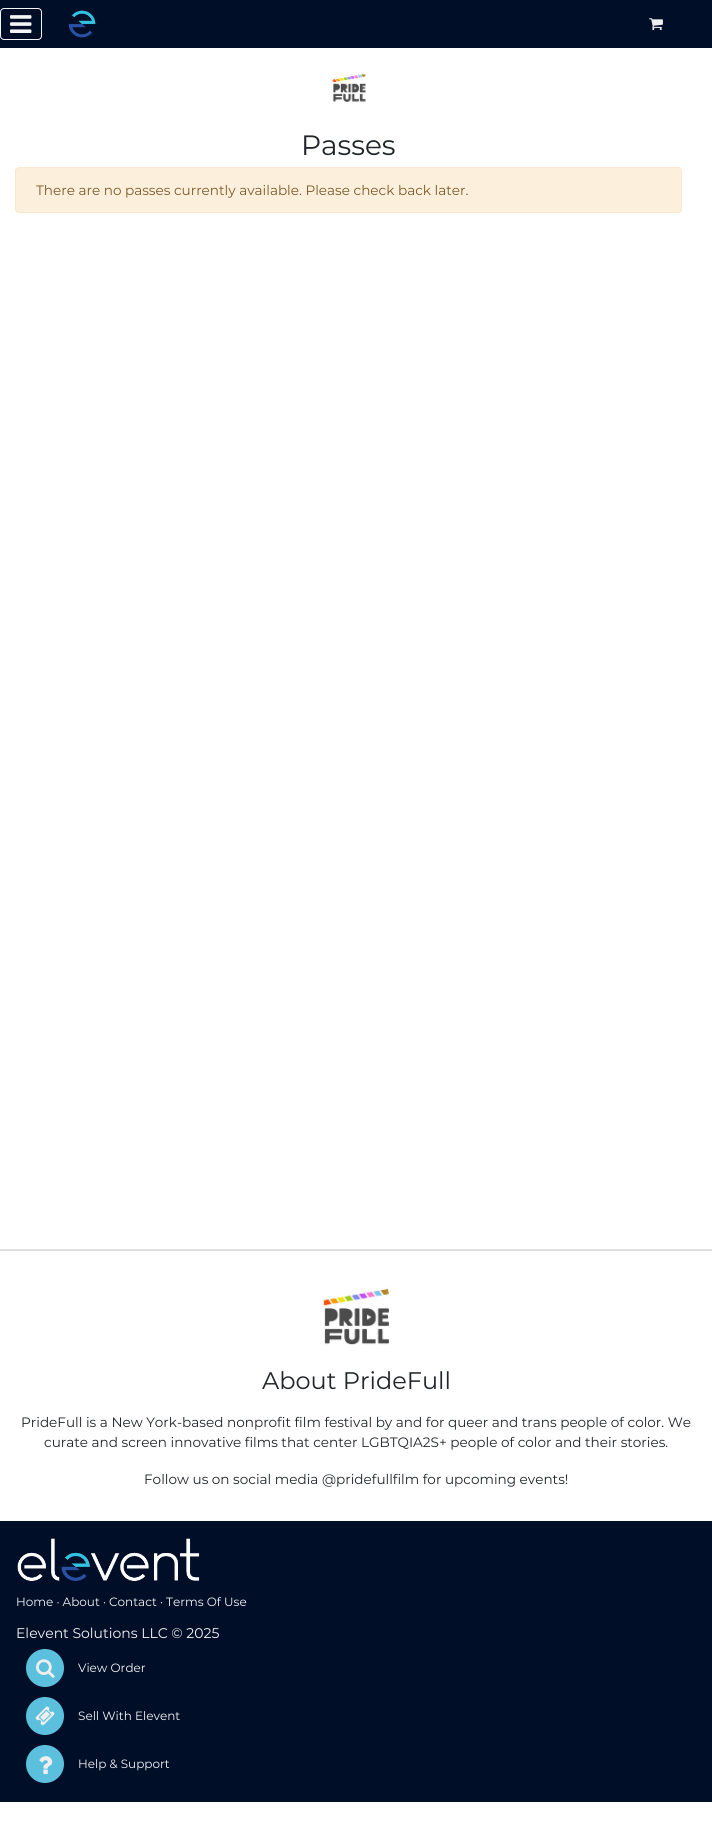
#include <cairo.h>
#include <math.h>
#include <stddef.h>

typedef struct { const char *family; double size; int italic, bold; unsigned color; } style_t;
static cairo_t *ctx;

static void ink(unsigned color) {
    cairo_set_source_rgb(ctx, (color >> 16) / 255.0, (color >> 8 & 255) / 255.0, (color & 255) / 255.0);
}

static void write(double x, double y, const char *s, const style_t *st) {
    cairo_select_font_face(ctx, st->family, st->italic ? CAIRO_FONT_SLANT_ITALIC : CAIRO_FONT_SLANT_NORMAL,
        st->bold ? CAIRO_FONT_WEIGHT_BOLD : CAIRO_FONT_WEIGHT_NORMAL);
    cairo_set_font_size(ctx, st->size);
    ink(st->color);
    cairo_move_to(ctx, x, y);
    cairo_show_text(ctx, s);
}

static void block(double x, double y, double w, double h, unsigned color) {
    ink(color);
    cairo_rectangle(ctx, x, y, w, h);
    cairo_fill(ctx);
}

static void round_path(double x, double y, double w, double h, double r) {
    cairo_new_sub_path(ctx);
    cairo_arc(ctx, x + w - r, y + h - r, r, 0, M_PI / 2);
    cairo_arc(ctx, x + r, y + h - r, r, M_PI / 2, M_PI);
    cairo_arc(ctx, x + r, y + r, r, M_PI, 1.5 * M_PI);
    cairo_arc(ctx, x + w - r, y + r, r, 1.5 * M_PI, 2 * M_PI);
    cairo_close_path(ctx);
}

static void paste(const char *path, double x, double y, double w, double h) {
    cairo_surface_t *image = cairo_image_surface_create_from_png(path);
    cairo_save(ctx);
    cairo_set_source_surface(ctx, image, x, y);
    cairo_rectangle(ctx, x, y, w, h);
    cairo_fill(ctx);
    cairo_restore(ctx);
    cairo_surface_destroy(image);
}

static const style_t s1 = {"Montserrat Thin", 28, 0, 0, 0x212529};
static const style_t s2 = {"Montserrat Thin", 13.6, 0, 0, 0x7d5a29};
static const style_t s3 = {"Montserrat Thin", 24, 0, 0, 0x212529};
static const style_t s4 = {"Montserrat Thin", 13.6, 0, 0, 0x212529};
static const style_t s5 = {"Montserrat Thin", 12, 0, 0, 0xf5f5f5};
static const style_t s6 = {"Montserrat Thin", 14, 0, 0, 0xf5f5f5};

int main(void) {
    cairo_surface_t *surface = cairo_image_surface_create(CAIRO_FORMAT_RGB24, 712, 1840);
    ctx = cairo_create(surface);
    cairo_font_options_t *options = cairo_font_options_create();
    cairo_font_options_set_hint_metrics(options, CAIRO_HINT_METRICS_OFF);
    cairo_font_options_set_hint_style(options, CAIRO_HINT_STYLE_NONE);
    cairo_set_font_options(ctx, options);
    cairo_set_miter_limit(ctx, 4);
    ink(0xffffff);
    cairo_paint(ctx);
    block(0, 0, 712, 48, 0x000e28);
    round_path(0.5, 8.5, 41, 31, 3.5);
    ink(0xf5f5f5);
    cairo_set_line_width(ctx, 1);
    cairo_stroke(ctx);
    paste("pic1.png", 10, 15, 22, 18);
    paste("pic2.png", 68, 10, 28, 28);
    paste("pic3.png", 649, 18, 14, 13);
    paste("pic4.png", 332, 73, 34, 29);
    write(301, 155, "Passes", &s1);
    ink(0xfcefdc);
    round_path(15.5, 167.5, 666, 45, 3.5);
    cairo_fill_preserve(ctx);
    ink(0xfbe8cd);
    cairo_stroke(ctx);
    write(36, 195, "There are no passes currently available. Please check back later.", &s2);
    block(0, 1249, 712, 2, 0xdddddd);
    paste("pic5.png", 323, 1286, 67, 59);
    write(262, 1389, "About PrideFull", &s3);
    write(21, 1427, "PrideFull is a New York-based nonprofit film festival by and for queer and trans people of color. We", &s4);
    write(44, 1447, "curate and screen innovative films that center LGBTQIA2S+ people of color and their stories.", &s4);
    write(144, 1484, "Follow us on social media @pridefullfilm for upcoming events!", &s4);
    block(0, 1521, 712, 281, 0x000e28);
    paste("pic6.png", 17, 1538, 192, 43);
    write(16, 1606, "Home · About · Contact · Terms Of Use", &s5);
    write(16, 1638, "Elevent Solutions LLC © 2025", &s6);
    ink(0x5bc0de);
    cairo_new_path(ctx);
    cairo_arc(ctx, 45, 1668, 19, 0, 2 * M_PI);
    cairo_fill(ctx);
    paste("pic7.png", 36, 1659, 19, 19);
    write(78, 1672, "View Order", &s5);
    ink(0x5bc0de);
    cairo_new_path(ctx);
    cairo_arc(ctx, 45, 1716, 19, 0, 2 * M_PI);
    cairo_fill(ctx);
    paste("pic8.png", 35, 1706, 20, 20);
    write(78, 1720, "Sell With Elevent", &s5);
    ink(0x5bc0de);
    cairo_new_path(ctx);
    cairo_arc(ctx, 45, 1764, 19, 0, 2 * M_PI);
    cairo_fill(ctx);
    paste("pic9.png", 39, 1756, 14, 18);
    write(78, 1768, "Help & Support", &s5);
    cairo_surface_write_to_png(surface, "screenshot.png");
    cairo_font_options_destroy(options);
    cairo_destroy(ctx);
    cairo_surface_destroy(surface);
    return 0;
}
